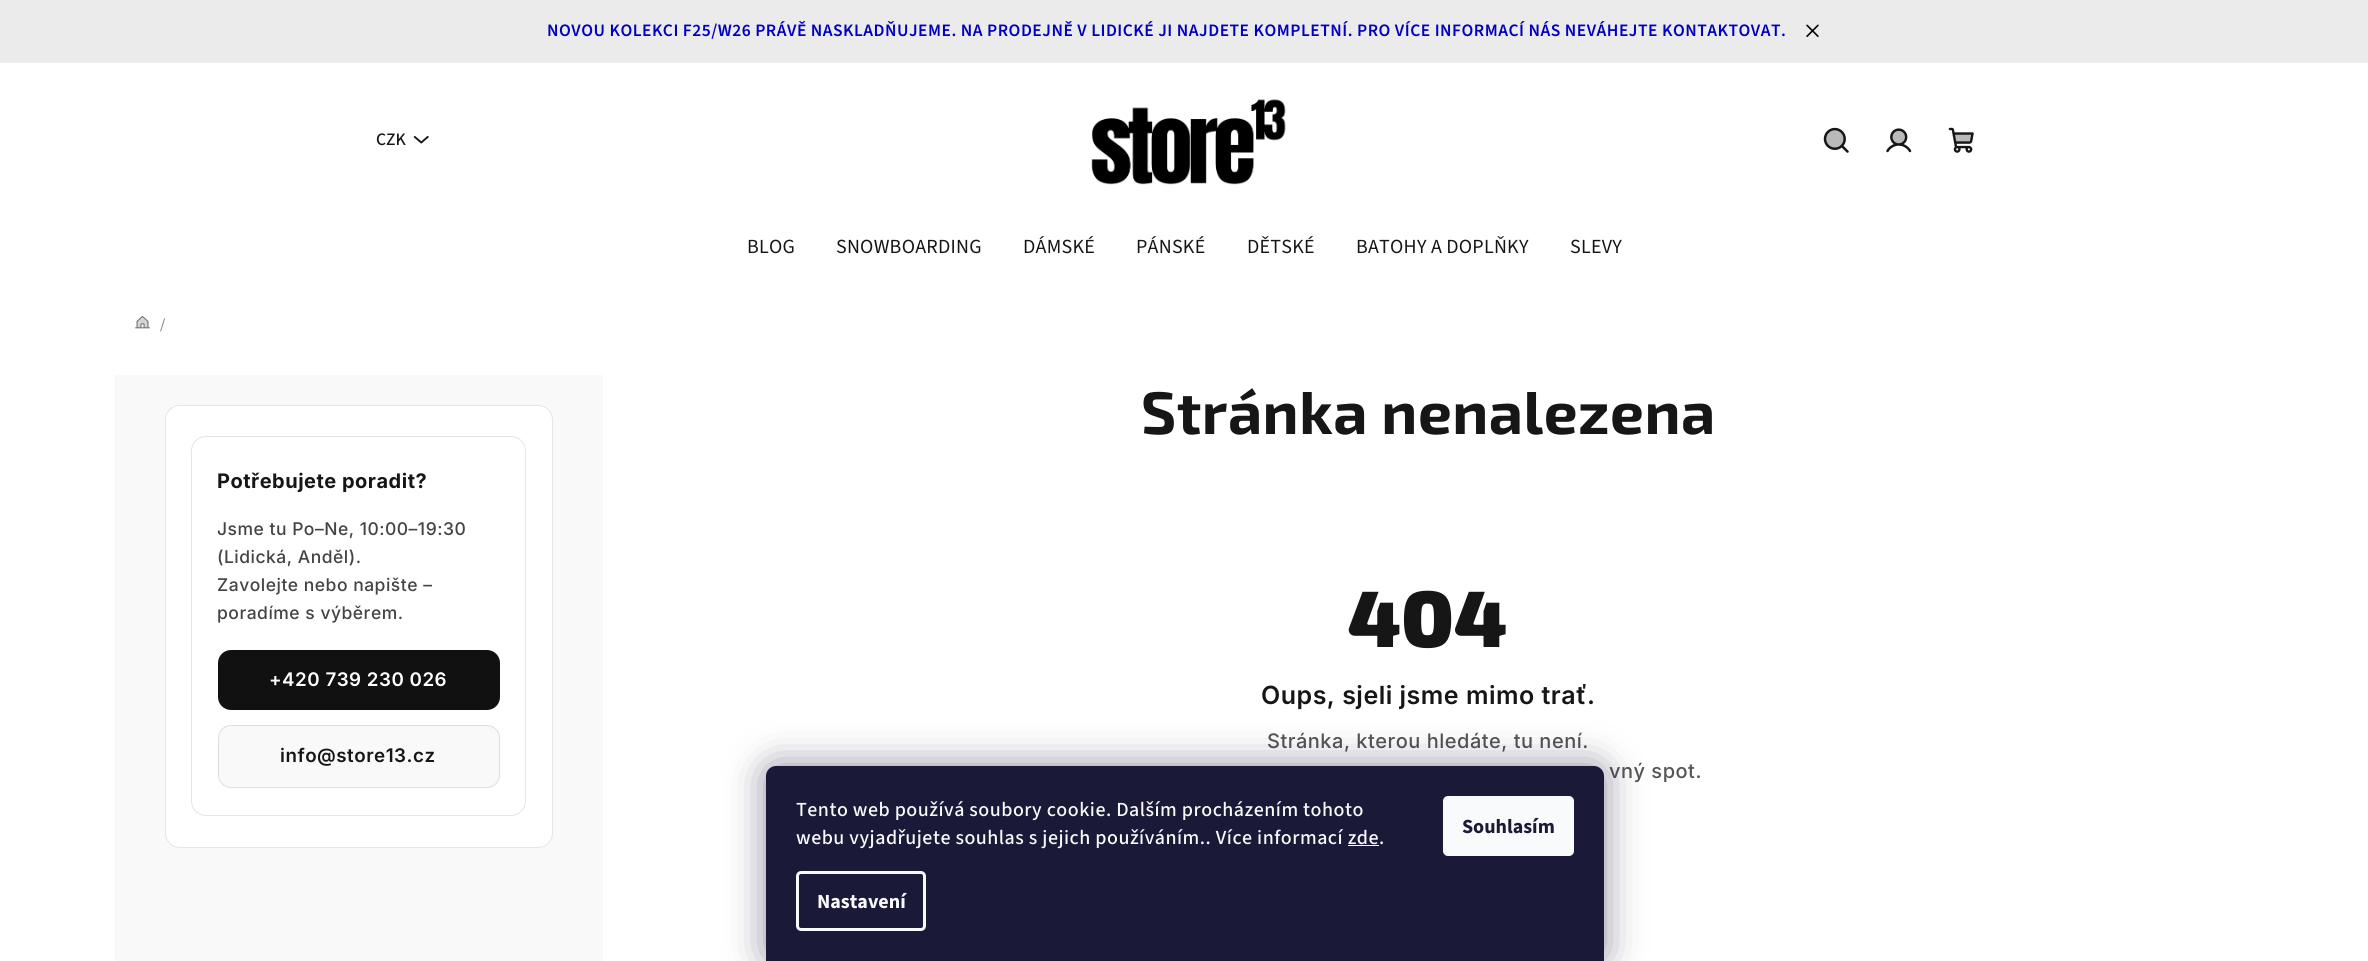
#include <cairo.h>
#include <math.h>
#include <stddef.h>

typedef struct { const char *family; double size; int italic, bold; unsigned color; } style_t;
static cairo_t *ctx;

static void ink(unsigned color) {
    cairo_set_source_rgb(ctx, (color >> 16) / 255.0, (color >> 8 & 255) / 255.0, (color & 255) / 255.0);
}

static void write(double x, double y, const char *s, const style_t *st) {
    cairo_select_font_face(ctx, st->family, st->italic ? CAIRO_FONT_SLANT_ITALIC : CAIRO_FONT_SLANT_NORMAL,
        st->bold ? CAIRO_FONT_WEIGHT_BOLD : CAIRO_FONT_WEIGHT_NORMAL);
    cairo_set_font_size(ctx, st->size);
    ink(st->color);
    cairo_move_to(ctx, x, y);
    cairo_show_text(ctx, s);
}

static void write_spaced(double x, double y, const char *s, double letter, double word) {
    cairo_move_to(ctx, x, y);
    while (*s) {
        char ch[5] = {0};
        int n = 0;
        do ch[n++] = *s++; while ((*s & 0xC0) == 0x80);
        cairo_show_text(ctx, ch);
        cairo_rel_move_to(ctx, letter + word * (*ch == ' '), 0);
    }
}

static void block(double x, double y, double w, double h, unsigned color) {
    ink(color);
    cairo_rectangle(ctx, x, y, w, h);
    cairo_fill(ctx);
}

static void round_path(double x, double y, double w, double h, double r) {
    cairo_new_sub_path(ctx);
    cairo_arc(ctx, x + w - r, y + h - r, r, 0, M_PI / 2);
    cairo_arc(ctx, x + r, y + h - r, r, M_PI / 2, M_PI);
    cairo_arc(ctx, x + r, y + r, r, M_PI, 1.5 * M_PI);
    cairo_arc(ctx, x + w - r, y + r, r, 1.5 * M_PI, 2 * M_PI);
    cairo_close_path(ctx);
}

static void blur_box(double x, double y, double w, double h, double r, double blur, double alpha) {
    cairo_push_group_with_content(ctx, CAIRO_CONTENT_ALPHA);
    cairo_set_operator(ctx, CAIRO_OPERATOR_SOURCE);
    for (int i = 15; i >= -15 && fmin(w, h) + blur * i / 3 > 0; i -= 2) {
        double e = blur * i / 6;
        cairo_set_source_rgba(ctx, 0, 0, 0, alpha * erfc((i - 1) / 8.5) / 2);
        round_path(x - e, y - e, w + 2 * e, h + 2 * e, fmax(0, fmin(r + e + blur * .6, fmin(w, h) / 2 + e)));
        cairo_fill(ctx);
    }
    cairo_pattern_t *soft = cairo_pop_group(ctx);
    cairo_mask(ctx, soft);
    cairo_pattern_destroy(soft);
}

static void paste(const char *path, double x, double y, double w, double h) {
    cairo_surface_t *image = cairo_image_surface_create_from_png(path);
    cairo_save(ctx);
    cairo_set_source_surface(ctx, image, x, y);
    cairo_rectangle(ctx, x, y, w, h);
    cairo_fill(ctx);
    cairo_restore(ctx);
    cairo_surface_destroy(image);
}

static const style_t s1 = {"Source Sans 3 Medium", 17.5, 0, 0, 0x161616};
static const style_t s2 = {"Source Sans 3", 20, 0, 1, 0xf8fafb};
static const style_t s3 = {"Source Sans 3", 20, 0, 1, 0x1a1937};

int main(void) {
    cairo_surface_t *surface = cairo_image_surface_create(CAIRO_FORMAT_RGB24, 2368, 961);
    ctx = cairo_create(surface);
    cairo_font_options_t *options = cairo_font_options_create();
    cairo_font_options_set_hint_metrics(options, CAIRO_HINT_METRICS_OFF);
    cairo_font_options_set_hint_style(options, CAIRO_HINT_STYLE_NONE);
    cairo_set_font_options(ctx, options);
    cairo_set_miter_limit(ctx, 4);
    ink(0xffffff);
    cairo_paint(ctx);
    block(0, 0, 2368, 63, 0xebebeb);
    cairo_select_font_face(ctx, "Source Sans 3 SemiBold", CAIRO_FONT_SLANT_NORMAL, CAIRO_FONT_WEIGHT_NORMAL);
    cairo_set_font_size(ctx, 17.5);
    ink(0x0000c1);
    write_spaced(547, 36, "NOVOU KOLEKCI F25/W26 PRÁVĚ NASKLADŇUJEME. NA PRODEJNĚ V LIDICKÉ JI NAJDETE KOMPLETNÍ. PRO VÍCE INFORMACÍ NÁS NEVÁHEJTE KONTAKTOVAT.", 0.5, 0);
    paste("pic1.png", 1806, 24, 13, 13);
    write(376, 145, "CZK", &s1);
    paste("pic2.png", 413, 136, 16, 8);
    paste("pic3.png", 1091, 99, 195, 86);
    paste("pic4.png", 1823, 127, 26, 26);
    cairo_set_source_rgba(ctx, 0.086, 0.086, 0.086, 0.3);
    cairo_new_path(ctx);
    cairo_move_to(ctx, 1835, 149);
    cairo_curve_to(ctx, 1848, 149, 1848, 129, 1835, 129);
    cairo_curve_to(ctx, 1822, 129, 1822, 149, 1835, 149);
    cairo_close_path(ctx);
    cairo_fill(ctx);
    paste("pic5.png", 1886, 128, 26, 25);
    paste("pic6.png", 1892, 130, 13, 14);
    paste("pic7.png", 1948, 127, 26, 26);
    cairo_rectangle(ctx, 1955, 134, 16, 8);
    cairo_fill(ctx);
    cairo_select_font_face(ctx, "Source Sans 3", CAIRO_FONT_SLANT_NORMAL, CAIRO_FONT_WEIGHT_NORMAL);
    cairo_set_font_size(ctx, 20);
    ink(0x161616);
    write_spaced(747, 253, "BLOG", 0.25, 0);
    write_spaced(836, 253, "SNOWBOARDING", 0.25, 0);
    write_spaced(1023, 253, "DÁMSKÉ", 0.25, 0);
    write_spaced(1136, 253, "PÁNSKÉ", 0.25, 0);
    write_spaced(1247, 253, "DĚTSKÉ", 0.25, 0);
    write_spaced(1356, 253, "BATOHY A DOPLŇKY", 0.25, 0);
    write_spaced(1570, 253, "SLEVY", 0.25, 0);
    paste("pic8.png", 135, 316, 15, 13);
    paste("pic9.png", 137, 316, 11, 12);
    cairo_set_font_size(ctx, 15);
    ink(0x747474);
    write_spaced(160, 329, "/", 1, 0);
    block(115, 375, 488, 586, 0xf9f9f9);
    ink(0xffffff);
    round_path(165.5, 405.5, 387, 442, 14.5);
    cairo_fill_preserve(ctx);
    ink(0xe5e5e5);
    cairo_set_line_width(ctx, 1);
    cairo_stroke(ctx);
    round_path(191.5, 436.5, 334, 379, 14.5);
    cairo_stroke(ctx);
    cairo_select_font_face(ctx, "Inter", CAIRO_FONT_SLANT_NORMAL, CAIRO_FONT_WEIGHT_BOLD);
    cairo_set_font_size(ctx, 20);
    ink(0x161616);
    write_spaced(217, 488, "Potřebujete poradit?", 0.5, 0);
    cairo_select_font_face(ctx, "Inter Medium", CAIRO_FONT_SLANT_NORMAL, CAIRO_FONT_WEIGHT_NORMAL);
    cairo_set_font_size(ctx, 17.5);
    ink(0x444444);
    write_spaced(217, 535, "Jsme tu Po–Ne, 10:00–19:30", 0.5, 0);
    write_spaced(217, 563, "(Lidická, Anděl).", 0.5, 0);
    write_spaced(217, 591, "Zavolejte nebo napište –", 0.5, 0);
    write_spaced(217, 619, "poradíme s výběrem.", 0.5, 0);
    ink(0x111111);
    round_path(218, 650, 282, 60, 13);
    cairo_fill(ctx);
    cairo_select_font_face(ctx, "Inter SemiBold", CAIRO_FONT_SLANT_NORMAL, CAIRO_FONT_WEIGHT_NORMAL);
    cairo_set_font_size(ctx, 18.75);
    ink(0xffffff);
    write_spaced(269, 686, "+420 739 230 026", 0.5, 0);
    ink(0xf9f9f9);
    round_path(218.5, 725.5, 281, 62, 12.5);
    cairo_fill_preserve(ctx);
    ink(0xdddddd);
    cairo_stroke(ctx);
    ink(0x161616);
    write_spaced(280, 762, "info@store13.cz", 0.5, 0);
    cairo_select_font_face(ctx, "Exo 2", CAIRO_FONT_SLANT_NORMAL, CAIRO_FONT_WEIGHT_BOLD);
    cairo_set_font_size(ctx, 60);
    write_spaced(1141, 434, "Stránka nenalezena", 0.5, 0);
    cairo_select_font_face(ctx, "Exo 2 Black", CAIRO_FONT_SLANT_NORMAL, CAIRO_FONT_WEIGHT_NORMAL);
    cairo_set_font_size(ctx, 80);
    write_spaced(1348, 647, "404", 0.5, 0);
    cairo_select_font_face(ctx, "Inter SemiBold", CAIRO_FONT_SLANT_NORMAL, CAIRO_FONT_WEIGHT_NORMAL);
    cairo_set_font_size(ctx, 25);
    write_spaced(1261, 704, "Oups, sjeli jsme mimo trať.", 0.5, 0);
    cairo_select_font_face(ctx, "Inter Medium", CAIRO_FONT_SLANT_NORMAL, CAIRO_FONT_WEIGHT_NORMAL);
    cairo_set_font_size(ctx, 20);
    ink(0x555555);
    write_spaced(1267, 748, "Stránka, kterou hledáte, tu není.", 0.5, 0);
    write_spaced(1609, 778, "vný spot.", 0.5, 0);
    ink(0x1b1939);
    blur_box(766, 766, 838, 195, 10, 19, 0.5);
    ink(0x1a1937);
    cairo_new_path(ctx);
    cairo_move_to(ctx, 776, 766);
    cairo_line_to(ctx, 1594, 766);
    cairo_curve_to(ctx, 1599.5, 766, 1604, 770.5, 1604, 776);
    cairo_line_to(ctx, 1604, 961);
    cairo_line_to(ctx, 766, 961);
    cairo_line_to(ctx, 766, 776);
    cairo_curve_to(ctx, 766, 770.5, 770.5, 766, 776, 766);
    cairo_close_path(ctx);
    cairo_fill(ctx);
    cairo_select_font_face(ctx, "Source Sans 3 Medium", CAIRO_FONT_SLANT_NORMAL, CAIRO_FONT_WEIGHT_NORMAL);
    ink(0xf8fafb);
    write_spaced(796, 816, "Tento web používá soubory cookie. Dalším procházením tohoto", 0.5, 0);
    write_spaced(796, 844, "webu vyjadřujete souhlas s jejich používáním.. Více informací zde.", 0.5, 0);
    block(1348, 845, 31, 1, 0xf8fafb);
    round_path(797.5, 872.5, 127, 57, 3.5);
    cairo_set_line_width(ctx, 3);
    cairo_stroke(ctx);
    write(817, 908, "Nastavení", &s2);
    round_path(1443, 796, 131, 60, 5);
    cairo_fill(ctx);
    write(1462, 833, "Souhlasím", &s3);
    cairo_surface_write_to_png(surface, "screenshot.png");
    cairo_font_options_destroy(options);
    cairo_destroy(ctx);
    cairo_surface_destroy(surface);
    return 0;
}
